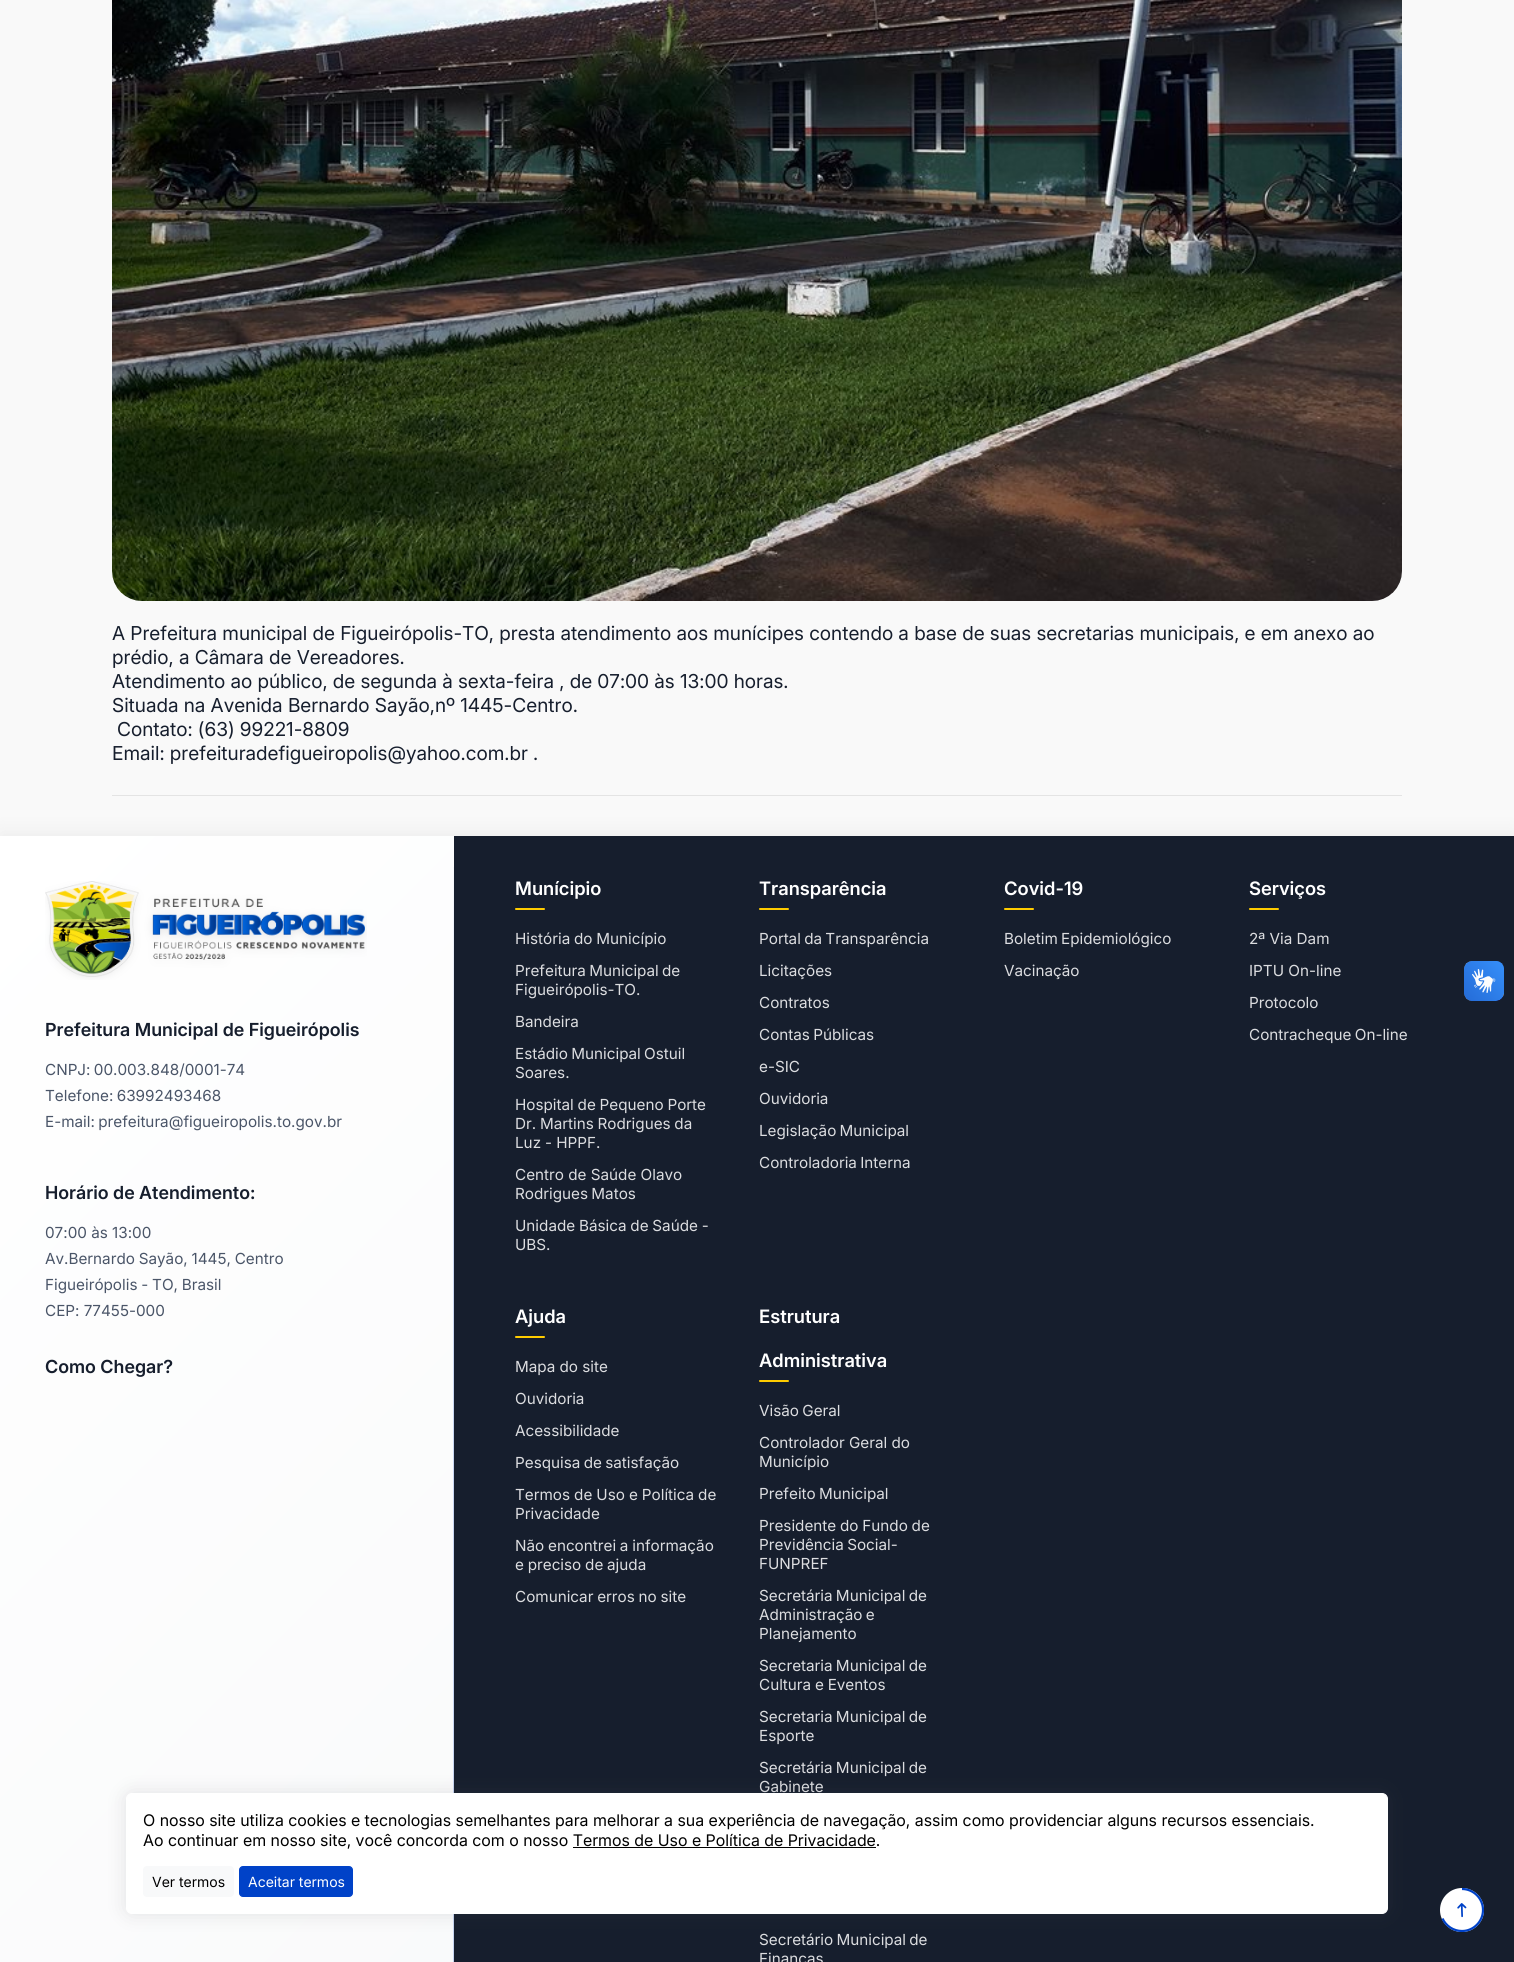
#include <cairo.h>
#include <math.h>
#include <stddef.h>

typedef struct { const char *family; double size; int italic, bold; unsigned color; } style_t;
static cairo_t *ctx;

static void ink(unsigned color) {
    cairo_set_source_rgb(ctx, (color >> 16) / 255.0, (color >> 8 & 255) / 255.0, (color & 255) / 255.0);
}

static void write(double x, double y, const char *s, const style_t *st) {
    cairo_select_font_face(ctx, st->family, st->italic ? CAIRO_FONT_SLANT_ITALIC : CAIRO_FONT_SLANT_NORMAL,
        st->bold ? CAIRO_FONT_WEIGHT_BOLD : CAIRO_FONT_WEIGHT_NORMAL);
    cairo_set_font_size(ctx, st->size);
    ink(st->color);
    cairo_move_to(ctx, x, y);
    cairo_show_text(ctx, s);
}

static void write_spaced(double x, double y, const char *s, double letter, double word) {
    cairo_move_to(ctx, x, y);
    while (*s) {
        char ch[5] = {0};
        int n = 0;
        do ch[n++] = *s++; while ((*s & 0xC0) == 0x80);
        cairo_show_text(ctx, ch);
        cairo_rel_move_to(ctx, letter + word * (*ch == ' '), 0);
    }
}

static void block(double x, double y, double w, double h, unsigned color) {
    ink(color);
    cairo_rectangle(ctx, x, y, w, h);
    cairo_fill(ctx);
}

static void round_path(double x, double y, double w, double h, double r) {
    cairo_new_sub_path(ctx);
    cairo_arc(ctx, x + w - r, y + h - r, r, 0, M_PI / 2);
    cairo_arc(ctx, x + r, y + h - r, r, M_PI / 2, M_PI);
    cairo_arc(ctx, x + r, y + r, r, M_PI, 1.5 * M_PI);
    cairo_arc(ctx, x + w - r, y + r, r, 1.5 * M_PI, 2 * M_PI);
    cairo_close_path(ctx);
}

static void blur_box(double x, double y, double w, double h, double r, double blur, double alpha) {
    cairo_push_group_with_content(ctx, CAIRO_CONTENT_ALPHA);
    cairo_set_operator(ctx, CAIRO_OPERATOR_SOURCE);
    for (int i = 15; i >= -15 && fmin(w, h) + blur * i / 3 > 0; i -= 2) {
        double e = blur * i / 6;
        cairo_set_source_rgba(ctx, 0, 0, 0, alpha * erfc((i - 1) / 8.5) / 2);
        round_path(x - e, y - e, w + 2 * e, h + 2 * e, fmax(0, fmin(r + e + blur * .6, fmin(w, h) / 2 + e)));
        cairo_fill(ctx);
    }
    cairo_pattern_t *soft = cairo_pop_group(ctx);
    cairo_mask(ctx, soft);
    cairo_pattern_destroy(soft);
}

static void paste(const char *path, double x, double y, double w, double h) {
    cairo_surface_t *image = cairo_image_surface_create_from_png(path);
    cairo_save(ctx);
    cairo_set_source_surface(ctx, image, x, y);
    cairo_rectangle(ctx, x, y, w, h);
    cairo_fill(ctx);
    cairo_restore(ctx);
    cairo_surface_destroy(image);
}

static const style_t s1 = {"Inter", 19.2, 0, 0, 0x161e2d};
static const style_t s2 = {"Inter SemiBold", 18, 0, 0, 0x161e2d};
static const style_t s3 = {"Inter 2", 15.25, 0, 0, 0x4a5568};
static const style_t s4 = {"Inter 2 SemiBold", 18.5, 0, 0, 0xffffff};
static const style_t s5 = {"Inter 2", 15.25, 0, 0, 0xdcdde0};
static const style_t s6 = {"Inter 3", 16, 0, 0, 0x000000};
static const style_t s7 = {"Inter 2", 14, 0, 0, 0x000000};
static const style_t s8 = {"Inter 2", 14, 0, 0, 0xffffff};

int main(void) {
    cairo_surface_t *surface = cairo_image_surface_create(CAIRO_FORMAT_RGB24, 1514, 1962);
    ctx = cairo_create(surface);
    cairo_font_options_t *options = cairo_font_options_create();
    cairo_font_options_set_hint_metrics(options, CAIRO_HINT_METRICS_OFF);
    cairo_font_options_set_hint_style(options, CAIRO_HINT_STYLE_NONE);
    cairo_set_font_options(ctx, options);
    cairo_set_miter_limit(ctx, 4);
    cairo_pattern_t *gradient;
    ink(0xf9f9f9);
    cairo_paint(ctx);
    block(112, 795, 1290, 1, 0xe4e4e4);
    paste("pic1.png", 112, 0, 1290, 601);
    write(112, 640, "A Prefeitura municipal de Figueirópolis-TO, presta atendimento aos munícipes contendo a base de suas secretarias municipais, e em anexo ao", &s1);
    write(112, 664, "prédio, a Câmara de Vereadores.", &s1);
    write(112, 688, "Atendimento ao público, de segunda à sexta-feira , de 07:00 às 13:00 horas.", &s1);
    write(112, 712, "Situada na Avenida Bernardo Sayão,nº 1445-Centro.", &s1);
    write(117, 736, "Contato: (63) 99221-8809", &s1);
    write(112, 760, "Email: prefeituradefigueiropolis@yahoo.com.br .", &s1);
    ink(0x000000);
    blur_box(0, 832, 1514, 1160, 0, 10, 0.05);
    gradient = cairo_pattern_create_linear(-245, 1082, 700, 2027);
    cairo_pattern_add_color_stop_rgba(gradient, 0, 1, 1, 1, 1);
    cairo_pattern_add_color_stop_rgba(gradient, 1, 0.973, 0.976, 0.98, 1);
    cairo_set_source(ctx, gradient);
    cairo_pattern_destroy(gradient);
    cairo_rectangle(ctx, 0, 836, 454, 1126);
    cairo_fill(ctx);
    paste("pic2.png", 45, 881, 322, 99);
    gradient = cairo_pattern_create_linear(453, 836, 454, 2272);
    cairo_pattern_add_color_stop_rgba(gradient, 0, 0, 0.259, 0.784, 0);
    cairo_pattern_add_color_stop_rgba(gradient, 0.2, 0, 0.259, 0.784, 0.2);
    cairo_pattern_add_color_stop_rgba(gradient, 0.8, 0, 0.259, 0.784, 0.2);
    cairo_pattern_add_color_stop_rgba(gradient, 1, 0, 0.259, 0.784, 0);
    cairo_set_source(ctx, gradient);
    cairo_pattern_destroy(gradient);
    cairo_rectangle(ctx, 453, 867, 1, 1095);
    cairo_fill(ctx);
    write(45, 1036, "Prefeitura Municipal de Figueirópolis", &s2);
    cairo_select_font_face(ctx, "Inter 2", CAIRO_FONT_SLANT_NORMAL, CAIRO_FONT_WEIGHT_NORMAL);
    cairo_set_font_size(ctx, 15.25);
    ink(0x4a5568);
    write_spaced(45, 1075, "CNPJ: 00.003.848/0001-74", 0, -1);
    write_spaced(45, 1101, "Telefone: 63992493468", 0, -1);
    write_spaced(45, 1127, "E-mail: prefeitura@figueiropolis.to.gov.br", 0, -1);
    write(45, 1199, "Horário de Atendimento:", &s2);
    write(45, 1238, "07:00 às 13:00", &s3);
    write_spaced(45, 1264, "Av.Bernardo Sayão, 1445, Centro", 0, -0.5);
    write_spaced(45, 1290, "Figueirópolis - TO, Brasil", 0, -0.5);
    write(45, 1316, "CEP: 77455-000", &s3);
    write(45, 1373, "Como Chegar?", &s2);
    block(454, 836, 1060, 1126, 0x161e2d);
    write(515, 895, "Munícipio", &s4);
    ink(0xffcc00);
    round_path(515, 908, 30, 2, 1);
    cairo_fill(ctx);
    cairo_select_font_face(ctx, "Inter 2", CAIRO_FONT_SLANT_NORMAL, CAIRO_FONT_WEIGHT_NORMAL);
    cairo_set_font_size(ctx, 15.25);
    ink(0xdcdde0);
    write_spaced(515, 944, "História do Município", 0, -0.5);
    write_spaced(515, 976, "Prefeitura Municipal de", 0, -1);
    write(515, 995, "Figueirópolis-TO.", &s5);
    write(515, 1027, "Bandeira", &s5);
    write_spaced(515, 1059, "Estádio Municipal Ostuil", 0, -1);
    write(515, 1078, "Soares.", &s5);
    write_spaced(515, 1110, "Hospital de Pequeno Porte", 0, -0.5);
    write_spaced(515, 1129, "Dr. Martins Rodrigues da", 0, -0.5);
    write_spaced(515, 1148, "Luz - HPPF.", 0, -0.25);
    write(515, 1180, "Centro de Saúde Olavo", &s5);
    write_spaced(515, 1199, "Rodrigues Matos", 0, -1);
    write_spaced(515, 1231, "Unidade Básica de Saúde -", 0, -0.5);
    write(515, 1250, "UBS.", &s5);
    write(759, 895, "Transparência", &s4);
    ink(0xffcc00);
    round_path(759, 908, 30, 2, 1);
    cairo_fill(ctx);
    cairo_select_font_face(ctx, "Inter 2", CAIRO_FONT_SLANT_NORMAL, CAIRO_FONT_WEIGHT_NORMAL);
    cairo_set_font_size(ctx, 15.25);
    ink(0xdcdde0);
    write_spaced(759, 944, "Portal da Transparência", 0, -1);
    write(759, 976, "Licitações", &s5);
    write(759, 1008, "Contratos", &s5);
    write_spaced(759, 1040, "Contas Públicas", 0, -1);
    write(759, 1072, "e-SIC", &s5);
    write(759, 1104, "Ouvidoria", &s5);
    write_spaced(759, 1136, "Legislação Municipal", 0, -1);
    write_spaced(759, 1168, "Controladoria Interna", 0, -1);
    write(1004, 895, "Covid-19", &s4);
    ink(0xffcc00);
    round_path(1004, 908, 30, 2, 1);
    cairo_fill(ctx);
    cairo_select_font_face(ctx, "Inter 2", CAIRO_FONT_SLANT_NORMAL, CAIRO_FONT_WEIGHT_NORMAL);
    cairo_set_font_size(ctx, 15.25);
    ink(0xdcdde0);
    write_spaced(1004, 944, "Boletim Epidemiológico", 0, -1);
    write(1004, 976, "Vacinação", &s5);
    write(1249, 895, "Serviços", &s4);
    ink(0xffcc00);
    round_path(1249, 908, 30, 2, 1);
    cairo_fill(ctx);
    write(1249, 944, "2ª Via Dam", &s5);
    write(1249, 976, "IPTU On-line", &s5);
    write(1249, 1008, "Protocolo", &s5);
    write_spaced(1249, 1040, "Contracheque On-line", 0, -1);
    write(515, 1323, "Ajuda", &s4);
    ink(0xffcc00);
    round_path(515, 1336, 30, 2, 1);
    cairo_fill(ctx);
    write(515, 1372, "Mapa do site", &s5);
    write(515, 1404, "Ouvidoria", &s5);
    write(515, 1436, "Acessibilidade", &s5);
    write_spaced(515, 1468, "Pesquisa de satisfação", 0, -1);
    write_spaced(515, 1500, "Termos de Uso e Política de", 0, -0.25);
    write(515, 1519, "Privacidade", &s5);
    write_spaced(515, 1551, "Não encontrei a informação", 0, -0.5);
    write_spaced(515, 1570, "e preciso de ajuda", 0, -0.5);
    write_spaced(515, 1602, "Comunicar erros no site", 0, -0.5);
    write(759, 1323, "Estrutura", &s4);
    write(759, 1367, "Administrativa", &s4);
    ink(0xffcc00);
    round_path(759, 1380, 30, 2, 1);
    cairo_fill(ctx);
    cairo_select_font_face(ctx, "Inter 2", CAIRO_FONT_SLANT_NORMAL, CAIRO_FONT_WEIGHT_NORMAL);
    cairo_set_font_size(ctx, 15.25);
    ink(0xdcdde0);
    write_spaced(759, 1416, "Visão Geral", 0, -1);
    write(759, 1448, "Controlador Geral do", &s5);
    write(759, 1467, "Município", &s5);
    write_spaced(759, 1499, "Prefeito Municipal", 0, -1);
    write_spaced(759, 1531, "Presidente do Fundo de", 0, -0.5);
    write_spaced(759, 1550, "Previdência Social-", 0, -1);
    write(759, 1569, "FUNPREF", &s5);
    write_spaced(759, 1601, "Secretária Municipal de", 0, -1);
    write_spaced(759, 1620, "Administração e", 0, -1);
    write(759, 1639, "Planejamento", &s5);
    write_spaced(759, 1671, "Secretaria Municipal de", 0, -1);
    write_spaced(759, 1690, "Cultura e Eventos", 0, -0.5);
    write_spaced(759, 1722, "Secretaria Municipal de", 0, -1);
    write(759, 1741, "Esporte", &s5);
    write_spaced(759, 1773, "Secretária Municipal de", 0, -1);
    write(759, 1792, "Gabinete", &s5);
    write_spaced(759, 1945, "Secretário Municipal de", 0, -1);
    write(759, 1964, "Finanças", &s5);
    ink(0xffffff);
    cairo_new_path(ctx);
    cairo_arc(ctx, 1462, 1910, 22, 0, 2 * M_PI);
    cairo_fill(ctx);
    cairo_new_path(ctx);
    cairo_move_to(ctx, 1462, 1889);
    cairo_curve_to(ctx, 1490, 1889, 1490, 1931, 1462, 1931);
    cairo_curve_to(ctx, 1434, 1931, 1434, 1889, 1462, 1889);
    cairo_fill(ctx);
    cairo_save(ctx);
    cairo_rectangle(ctx, 1440, 1888, 44, 44);
    cairo_clip(ctx);
    cairo_new_path(ctx);
    cairo_move_to(ctx, 1462, 1889);
    cairo_curve_to(ctx, 1473.5, 1889, 1483, 1898.5, 1483, 1910);
    cairo_curve_to(ctx, 1483, 1921.5, 1473.5, 1931, 1462, 1931);
    cairo_curve_to(ctx, 1453.5, 1931, 1446, 1926, 1442.5, 1918.5);
    ink(0x0042c8);
    cairo_set_line_width(ctx, 2.2);
    cairo_stroke(ctx);
    cairo_restore(ctx);
    paste("pic3.png", 1457, 1903, 10, 15);
    paste("pic4.png", 1464, 961, 40, 40);
    paste("pic5.png", 1464, 961, 40, 40);
    ink(0x53585d);
    blur_box(126, 1793, 1262, 121, 6, 10, 0.15);
    ink(0xffffff);
    round_path(126.5, 1793.5, 1261, 120, 5.5);
    cairo_fill_preserve(ctx);
    cairo_set_line_width(ctx, 1);
    cairo_stroke(ctx);
    write(143, 1826, "O nosso site utiliza cookies e tecnologias semelhantes para melhorar a sua experiência de navegação, assim como providenciar alguns recursos essenciais.", &s6);
    write(143, 1846, "Ao continuar em nosso site, você concorda com o nosso Termos de Uso e Política de Privacidade.", &s6);
    block(573, 1847, 303, 1, 0x000000);
    ink(0xf8f9fa);
    round_path(143, 1866, 91, 31, 4);
    cairo_fill(ctx);
    write(152, 1887, "Ver termos", &s7);
    ink(0x0042c8);
    round_path(239.5, 1866.5, 113, 30, 3.5);
    cairo_fill_preserve(ctx);
    cairo_stroke(ctx);
    write(248, 1887, "Aceitar termos", &s8);
    cairo_surface_write_to_png(surface, "screenshot.png");
    cairo_font_options_destroy(options);
    cairo_destroy(ctx);
    cairo_surface_destroy(surface);
    return 0;
}
